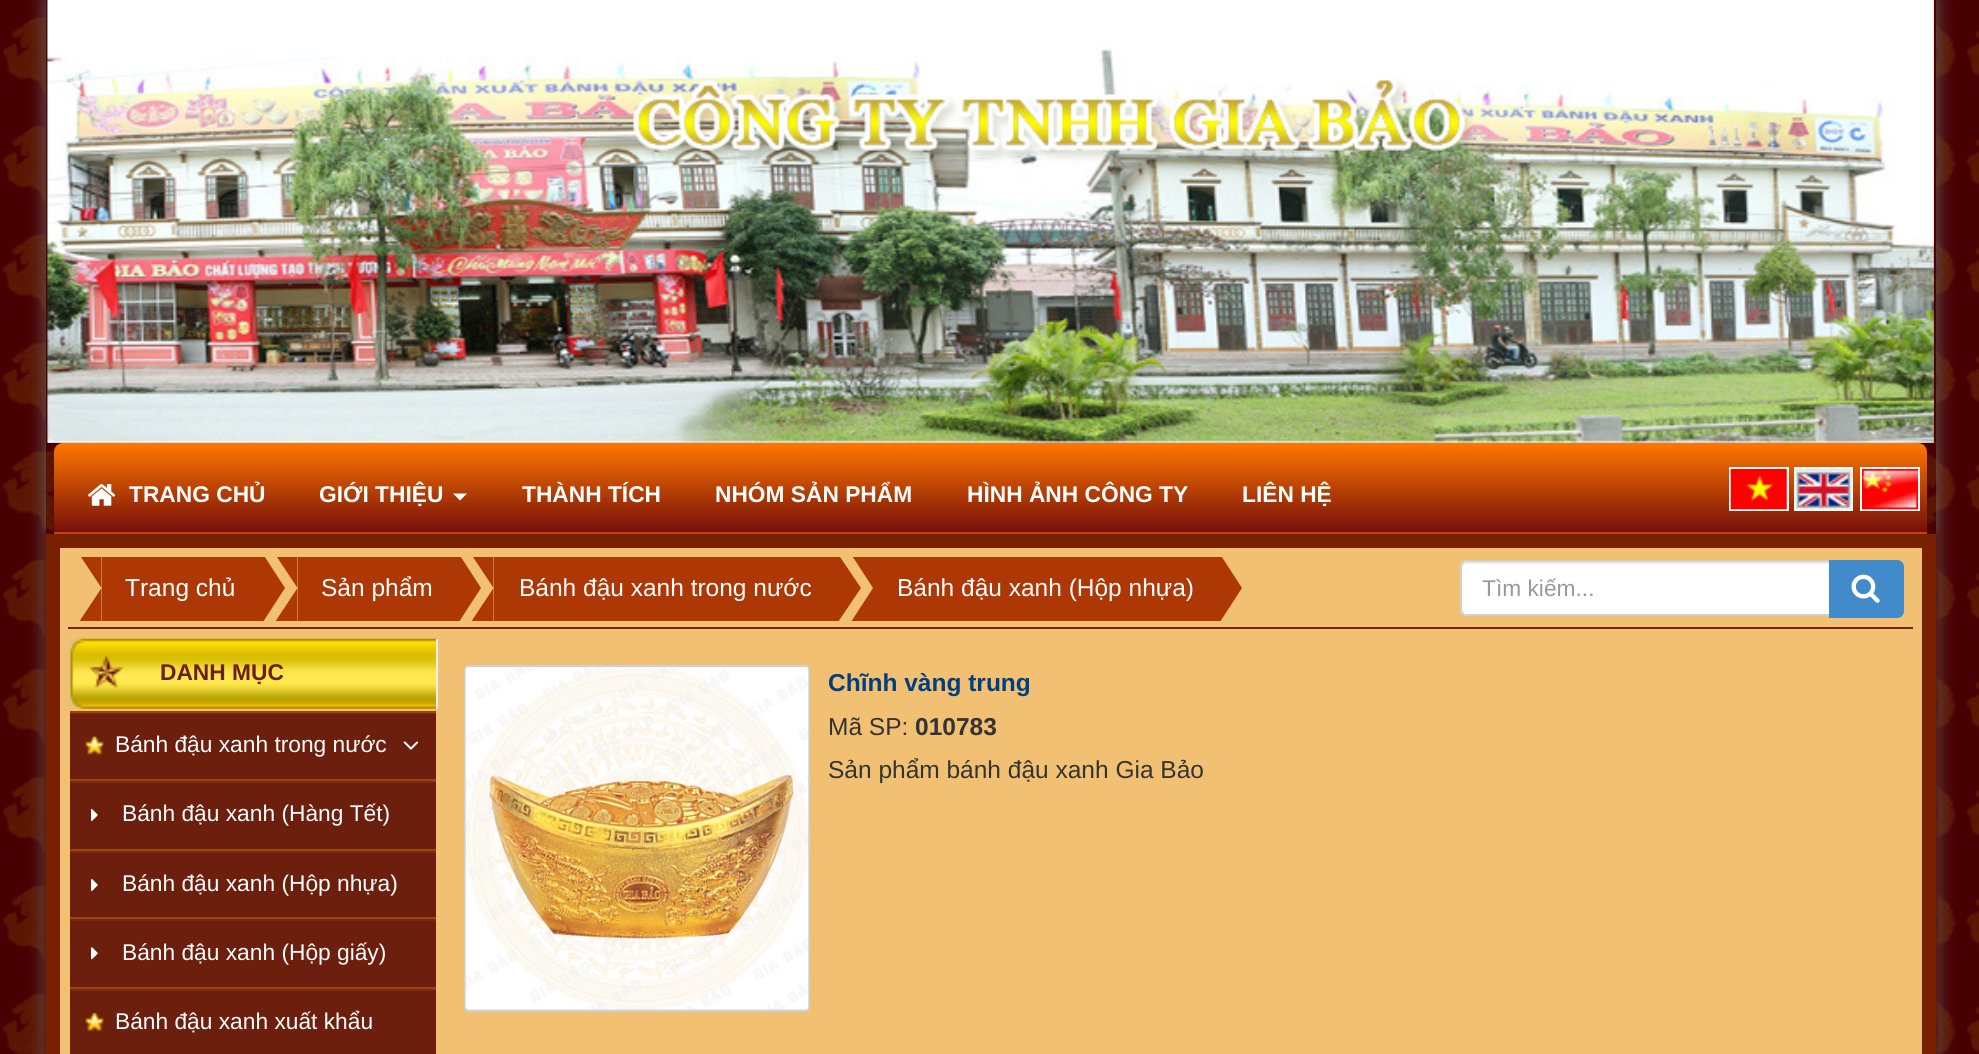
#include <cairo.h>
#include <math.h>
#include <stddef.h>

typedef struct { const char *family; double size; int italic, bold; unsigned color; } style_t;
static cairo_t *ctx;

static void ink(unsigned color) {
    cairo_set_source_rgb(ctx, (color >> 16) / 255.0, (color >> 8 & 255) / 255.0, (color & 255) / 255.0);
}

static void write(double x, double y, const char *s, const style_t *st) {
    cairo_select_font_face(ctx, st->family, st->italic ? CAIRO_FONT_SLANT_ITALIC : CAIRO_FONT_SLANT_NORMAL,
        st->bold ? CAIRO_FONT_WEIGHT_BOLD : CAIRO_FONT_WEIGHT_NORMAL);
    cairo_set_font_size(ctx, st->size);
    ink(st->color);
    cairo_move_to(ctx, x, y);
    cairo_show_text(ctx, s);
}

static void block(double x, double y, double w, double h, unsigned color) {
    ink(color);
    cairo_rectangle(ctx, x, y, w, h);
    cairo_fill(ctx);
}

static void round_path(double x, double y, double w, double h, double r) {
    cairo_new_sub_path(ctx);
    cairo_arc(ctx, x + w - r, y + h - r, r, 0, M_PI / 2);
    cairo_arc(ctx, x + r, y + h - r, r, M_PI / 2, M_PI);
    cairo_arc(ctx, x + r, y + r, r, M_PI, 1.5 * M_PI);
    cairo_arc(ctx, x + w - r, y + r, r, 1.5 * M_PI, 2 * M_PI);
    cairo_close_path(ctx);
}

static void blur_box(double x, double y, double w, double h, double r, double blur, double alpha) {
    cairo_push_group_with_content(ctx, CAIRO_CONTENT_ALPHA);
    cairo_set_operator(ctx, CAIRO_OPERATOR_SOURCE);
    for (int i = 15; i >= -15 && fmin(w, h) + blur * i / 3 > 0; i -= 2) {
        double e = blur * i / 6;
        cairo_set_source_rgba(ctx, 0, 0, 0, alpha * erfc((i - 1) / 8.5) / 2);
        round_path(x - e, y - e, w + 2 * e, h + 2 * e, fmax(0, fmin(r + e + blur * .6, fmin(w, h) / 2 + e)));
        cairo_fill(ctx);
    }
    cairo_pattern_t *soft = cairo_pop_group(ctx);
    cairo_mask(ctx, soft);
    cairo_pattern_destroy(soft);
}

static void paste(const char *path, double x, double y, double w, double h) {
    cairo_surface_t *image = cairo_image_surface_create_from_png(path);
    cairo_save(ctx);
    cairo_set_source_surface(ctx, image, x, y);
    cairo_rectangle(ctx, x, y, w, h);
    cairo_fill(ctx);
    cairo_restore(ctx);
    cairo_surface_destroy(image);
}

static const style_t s1 = {"Liberation Sans", 22.75, 0, 1, 0xffffff};
static const style_t s2 = {"Liberation Sans", 24.5, 0, 0, 0xffffff};
static const style_t s3 = {"Liberation Sans", 22.75, 0, 0, 0x999999};
static const style_t s4 = {"Liberation Sans", 22.75, 0, 1, 0x6d1f0e};
static const style_t s5 = {"Liberation Sans", 22.75, 0, 0, 0xffffff};
static const style_t s6 = {"Liberation Sans", 24.5, 0, 1, 0x004080};
static const style_t s7 = {"Liberation Sans", 24.5, 0, 0, 0x333333};
static const style_t s8 = {"Liberation Sans", 24.5, 0, 1, 0x333333};

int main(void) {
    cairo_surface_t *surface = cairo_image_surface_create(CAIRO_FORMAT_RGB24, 1979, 1054);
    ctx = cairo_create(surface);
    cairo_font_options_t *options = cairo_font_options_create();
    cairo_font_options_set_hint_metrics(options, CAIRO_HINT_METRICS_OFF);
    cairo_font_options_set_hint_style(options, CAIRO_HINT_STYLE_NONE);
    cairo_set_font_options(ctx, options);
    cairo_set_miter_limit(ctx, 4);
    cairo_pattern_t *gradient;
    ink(0xffffff);
    cairo_paint(ctx);
    paste("pic1.png", 0, 0, 1979, 1054);
    cairo_save(ctx);
    cairo_set_fill_rule(ctx, CAIRO_FILL_RULE_EVEN_ODD);
    cairo_new_path(ctx);
    cairo_move_to(ctx, 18, 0);
    cairo_line_to(ctx, 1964, 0);
    cairo_line_to(ctx, 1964, 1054);
    cairo_line_to(ctx, 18, 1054);
    cairo_close_path(ctx);
    cairo_move_to(ctx, 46, 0);
    cairo_line_to(ctx, 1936, 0);
    cairo_line_to(ctx, 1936, 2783);
    cairo_line_to(ctx, 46, 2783);
    cairo_close_path(ctx);
    cairo_clip(ctx);
    ink(0x666666);
    blur_box(46, 0, 1890, 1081, 0, 9, 1);
    cairo_restore(ctx);
    ink(0x000000);
    blur_box(46, 0, 1890, 443, 0, 3.5, 0.15);
    paste("pic2.png", 48, 0, 1886, 443);
    block(1934, 0, 2, 443, 0x500000);
    block(46, 0, 2, 443, 0x500000);
    ink(0x000000);
    blur_box(54, 443, 1873, 91, 9, 3.5, 0.15);
    paste("pic3.png", 47, 0, 1887, 443);
    ink(0x500000);
    blur_box(46, 534, 1890, 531, 0, 3.5, 1);
    gradient = cairo_pattern_create_linear(991, 443, 991, 532);
    cairo_pattern_add_color_stop_rgba(gradient, 0, 1, 0.467, 0, 1);
    cairo_pattern_add_color_stop_rgba(gradient, 1, 0.467, 0.059, 0.035, 1);
    cairo_set_source(ctx, gradient);
    cairo_pattern_destroy(gradient);
    cairo_new_path(ctx);
    cairo_move_to(ctx, 63, 443);
    cairo_line_to(ctx, 1918, 443);
    cairo_curve_to(ctx, 1923, 443, 1927, 447, 1927, 452);
    cairo_line_to(ctx, 1927, 532);
    cairo_line_to(ctx, 54, 532);
    cairo_line_to(ctx, 54, 452);
    cairo_curve_to(ctx, 54, 447, 58, 443, 63, 443);
    cairo_close_path(ctx);
    cairo_fill(ctx);
    block(54, 532, 1873, 2, 0xc04705);
    paste("pic4.png", 88, 484, 28, 22);
    write(129, 502, "TRANG CHỦ", &s1);
    write(319, 502, "GIỚI THIỆU", &s1);
    cairo_new_path(ctx);
    cairo_move_to(ctx, 453, 493.5);
    cairo_line_to(ctx, 467, 493.5);
    cairo_line_to(ctx, 460, 500.5);
    cairo_close_path(ctx);
    cairo_fill(ctx);
    write(522, 502, "THÀNH TÍCH", &s1);
    write(715, 502, "NHÓM SẢN PHẨM", &s1);
    write(967, 502, "HÌNH ẢNH CÔNG TY", &s1);
    write(1242, 502, "LIÊN HỆ", &s1);
    block(1729, 467, 60, 44, 0xfefefe);
    block(1794, 467, 59, 44, 0xfefefe);
    block(1860, 467, 60, 44, 0xfefefe);
    paste("pic5.png", 1730, 469, 57, 41);
    paste("pic6.png", 1795, 469, 57, 41);
    paste("pic7.png", 1862, 469, 56, 41);
    ink(0xf1c072);
    cairo_rectangle(ctx, 53, 541, 1876, 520);
    cairo_fill_preserve(ctx);
    ink(0x792000);
    cairo_set_line_width(ctx, 14);
    cairo_stroke(ctx);
    block(68, 627, 1845, 2, 0x792000);
    block(102, 557, 159, 64, 0xad3806);
    cairo_save(ctx);
    cairo_rectangle(ctx, 77, 557, 1365, 64);
    cairo_clip(ctx);
    cairo_new_path(ctx);
    cairo_move_to(ctx, 77, 551);
    cairo_line_to(ctx, 101.5, 551);
    cairo_line_to(ctx, 101.5, 588);
    cairo_close_path(ctx);
    cairo_fill(ctx);
    cairo_new_path(ctx);
    cairo_move_to(ctx, 101.5, 625);
    cairo_line_to(ctx, 77, 625);
    cairo_line_to(ctx, 101.5, 588);
    cairo_close_path(ctx);
    cairo_fill(ctx);
    cairo_restore(ctx);
    write(125, 596, "Trang chủ", &s2);
    cairo_save(ctx);
    cairo_rectangle(ctx, 77, 557, 1365, 64);
    cairo_clip(ctx);
    ink(0xad3806);
    cairo_new_path(ctx);
    cairo_move_to(ctx, 261, 625);
    cairo_line_to(ctx, 261, 551);
    cairo_line_to(ctx, 285, 588);
    cairo_close_path(ctx);
    cairo_fill(ctx);
    cairo_restore(ctx);
    block(298, 557, 159, 64, 0xad3806);
    cairo_save(ctx);
    cairo_rectangle(ctx, 77, 557, 1365, 64);
    cairo_clip(ctx);
    cairo_new_path(ctx);
    cairo_move_to(ctx, 273, 551);
    cairo_line_to(ctx, 297.5, 551);
    cairo_line_to(ctx, 297.5, 588);
    cairo_close_path(ctx);
    cairo_fill(ctx);
    cairo_new_path(ctx);
    cairo_move_to(ctx, 297.5, 625);
    cairo_line_to(ctx, 273, 625);
    cairo_line_to(ctx, 297.5, 588);
    cairo_close_path(ctx);
    cairo_fill(ctx);
    cairo_restore(ctx);
    write(321, 596, "Sản phẩm", &s2);
    cairo_save(ctx);
    cairo_rectangle(ctx, 77, 557, 1365, 64);
    cairo_clip(ctx);
    ink(0xad3806);
    cairo_new_path(ctx);
    cairo_move_to(ctx, 457, 625);
    cairo_line_to(ctx, 457, 551);
    cairo_line_to(ctx, 481, 588);
    cairo_close_path(ctx);
    cairo_fill(ctx);
    cairo_restore(ctx);
    block(494, 557, 342, 64, 0xad3806);
    cairo_save(ctx);
    cairo_rectangle(ctx, 77, 557, 1365, 64);
    cairo_clip(ctx);
    cairo_new_path(ctx);
    cairo_move_to(ctx, 469, 551);
    cairo_line_to(ctx, 493.5, 551);
    cairo_line_to(ctx, 493.5, 588);
    cairo_close_path(ctx);
    cairo_fill(ctx);
    cairo_new_path(ctx);
    cairo_move_to(ctx, 493.5, 625);
    cairo_line_to(ctx, 469, 625);
    cairo_line_to(ctx, 493.5, 588);
    cairo_close_path(ctx);
    cairo_fill(ctx);
    cairo_restore(ctx);
    write(519, 596, "Bánh đậu xanh trong nước", &s2);
    cairo_save(ctx);
    cairo_rectangle(ctx, 77, 557, 1365, 64);
    cairo_clip(ctx);
    ink(0xad3806);
    cairo_new_path(ctx);
    cairo_move_to(ctx, 836, 625);
    cairo_line_to(ctx, 836, 551);
    cairo_line_to(ctx, 861, 588);
    cairo_close_path(ctx);
    cairo_fill(ctx);
    cairo_restore(ctx);
    block(873, 557, 345, 64, 0xad3806);
    cairo_save(ctx);
    cairo_rectangle(ctx, 77, 557, 1365, 64);
    cairo_clip(ctx);
    cairo_new_path(ctx);
    cairo_move_to(ctx, 849, 551);
    cairo_line_to(ctx, 873, 551);
    cairo_line_to(ctx, 873, 588);
    cairo_close_path(ctx);
    cairo_fill(ctx);
    cairo_new_path(ctx);
    cairo_move_to(ctx, 873, 625);
    cairo_line_to(ctx, 849, 625);
    cairo_line_to(ctx, 873, 588);
    cairo_close_path(ctx);
    cairo_fill(ctx);
    cairo_restore(ctx);
    write(897, 596, "Bánh đậu xanh (Hộp nhựa)", &s2);
    cairo_save(ctx);
    cairo_rectangle(ctx, 77, 557, 1365, 64);
    cairo_clip(ctx);
    ink(0xad3806);
    cairo_new_path(ctx);
    cairo_move_to(ctx, 1218, 625);
    cairo_line_to(ctx, 1218, 551);
    cairo_line_to(ctx, 1242, 588);
    cairo_close_path(ctx);
    cairo_fill(ctx);
    cairo_restore(ctx);
    cairo_new_path(ctx);
    cairo_move_to(ctx, 1467, 560);
    cairo_line_to(ctx, 1831, 560);
    cairo_line_to(ctx, 1831, 616);
    cairo_line_to(ctx, 1467, 616);
    cairo_curve_to(ctx, 1463, 616, 1460, 613, 1460, 609);
    cairo_line_to(ctx, 1460, 567);
    cairo_curve_to(ctx, 1460, 563, 1463, 560, 1467, 560);
    cairo_close_path(ctx);
    cairo_fill(ctx);
    ink(0xececec);
    cairo_new_path(ctx);
    cairo_move_to(ctx, 1466, 564);
    cairo_line_to(ctx, 1829, 564);
    cairo_line_to(ctx, 1829, 562);
    cairo_line_to(ctx, 1466, 562);
    cairo_curve_to(ctx, 1462, 562, 1461, 566, 1461, 569);
    cairo_curve_to(ctx, 1461, 566, 1464, 564, 1466, 564);
    cairo_close_path(ctx);
    cairo_fill(ctx);
    cairo_new_path(ctx);
    cairo_move_to(ctx, 1467, 561);
    cairo_line_to(ctx, 1830, 561);
    cairo_line_to(ctx, 1830, 615);
    cairo_line_to(ctx, 1467, 615);
    cairo_curve_to(ctx, 1463.5, 615, 1461, 612.5, 1461, 609);
    cairo_line_to(ctx, 1461, 567);
    cairo_curve_to(ctx, 1461, 563.5, 1463.5, 561, 1467, 561);
    cairo_close_path(ctx);
    ink(0xd0d0d0);
    cairo_set_line_width(ctx, 2);
    cairo_stroke(ctx);
    write(1482, 596, "Tìm kiếm...", &s3);
    ink(0x428bca);
    cairo_new_path(ctx);
    cairo_move_to(ctx, 1830, 561);
    cairo_line_to(ctx, 1897, 561);
    cairo_curve_to(ctx, 1900.5, 561, 1903, 563.5, 1903, 567);
    cairo_line_to(ctx, 1903, 611);
    cairo_curve_to(ctx, 1903, 614.5, 1900.5, 617, 1897, 617);
    cairo_line_to(ctx, 1830, 617);
    cairo_close_path(ctx);
    cairo_fill_preserve(ctx);
    cairo_stroke(ctx);
    paste("pic8.png", 1851, 574, 29, 29);
    paste("pic9.png", 68, 638, 370, 71);
    block(436, 639, 2, 70, 0xeeeeee);
    write(160, 680, "DANH MỤC", &s4);
    block(70, 714, 366, 65, 0x6d1f0e);
    paste("pic10.png", 85, 736, 19, 19);
    block(70, 713, 366, 1, 0x742a1a);
    block(70, 711, 366, 2, 0xa04600);
    write(115, 752, "Bánh đậu xanh trong nước", &s5);
    paste("pic11.png", 403, 741, 16, 9);
    block(70, 783, 366, 66, 0x6d1f0e);
    block(70, 781, 366, 2, 0x742a1a);
    block(70, 779, 366, 2, 0xa04600);
    paste("pic12.png", 91, 809, 7, 12);
    write(122, 821, "Bánh đậu xanh (Hàng Tết)", &s5);
    block(70, 853, 366, 64, 0x6d1f0e);
    block(70, 851, 366, 2, 0x742a1a);
    block(70, 849, 366, 2, 0xa04600);
    paste("pic12.png", 91, 879, 7, 12);
    write(122, 891, "Bánh đậu xanh (Hộp nhựa)", &s5);
    block(70, 921, 366, 66, 0x6d1f0e);
    block(70, 919, 366, 2, 0x742a1a);
    block(70, 917, 366, 2, 0xa04600);
    paste("pic13.png", 91, 947, 7, 13);
    write(122, 960, "Bánh đậu xanh (Hộp giấy)", &s5);
    block(70, 991, 366, 63, 0x6d1f0e);
    paste("pic14.png", 85, 1013, 19, 18);
    block(70, 989, 366, 2, 0x742a1a);
    block(70, 987, 366, 2, 0xa04600);
    write(115, 1029, "Bánh đậu xanh xuất khẩu", &s5);
    ink(0xd0d0d0);
    round_path(464, 665, 346, 347, 5);
    cairo_fill(ctx);
    paste("pic15.png", 465, 667, 344, 343);
    write(828, 691, "Chĩnh vàng trung", &s6);
    write(828, 735, "Mã SP:", &s7);
    write(915, 735, "010783", &s8);
    write(828, 778, "Sản phẩm bánh đậu xanh Gia Bảo", &s7);
    cairo_surface_write_to_png(surface, "screenshot.png");
    cairo_font_options_destroy(options);
    cairo_destroy(ctx);
    cairo_surface_destroy(surface);
    return 0;
}
